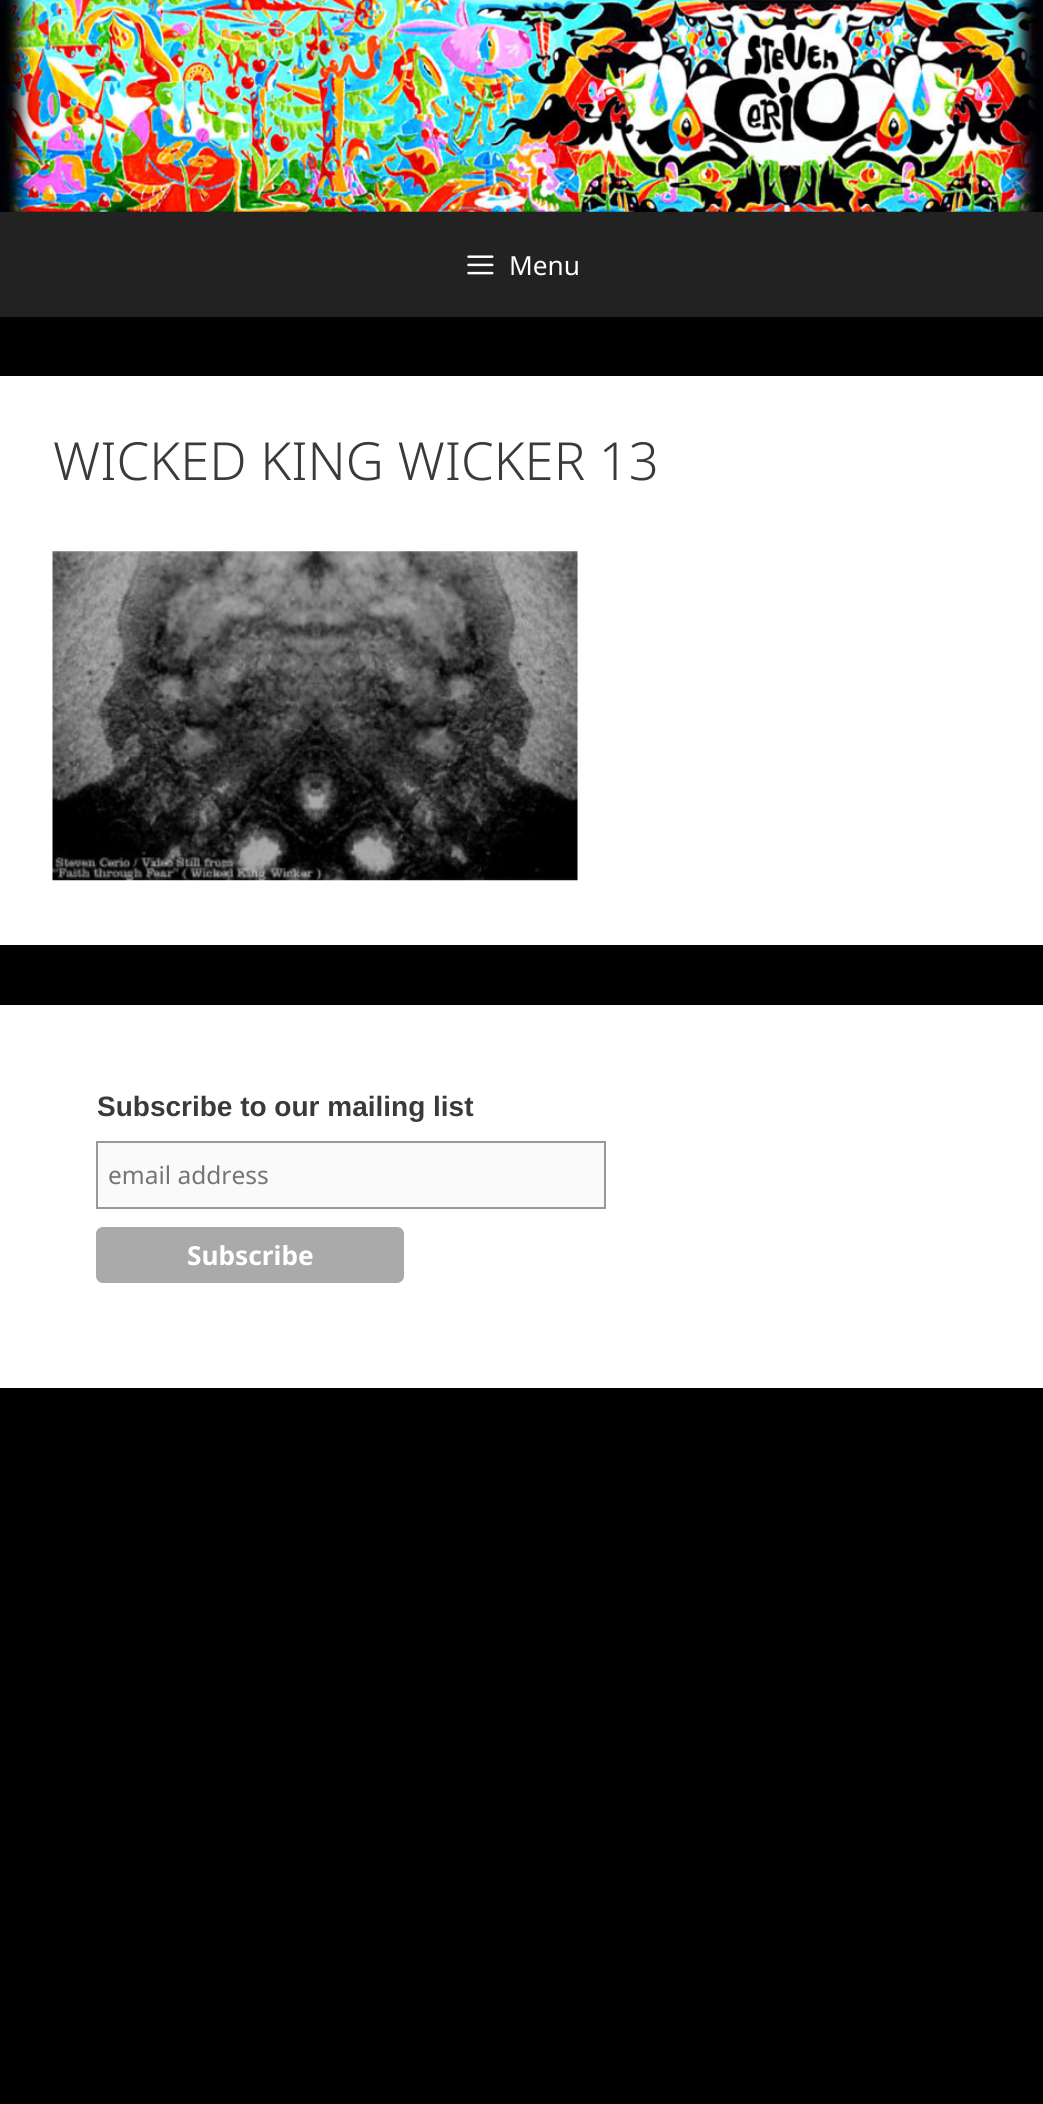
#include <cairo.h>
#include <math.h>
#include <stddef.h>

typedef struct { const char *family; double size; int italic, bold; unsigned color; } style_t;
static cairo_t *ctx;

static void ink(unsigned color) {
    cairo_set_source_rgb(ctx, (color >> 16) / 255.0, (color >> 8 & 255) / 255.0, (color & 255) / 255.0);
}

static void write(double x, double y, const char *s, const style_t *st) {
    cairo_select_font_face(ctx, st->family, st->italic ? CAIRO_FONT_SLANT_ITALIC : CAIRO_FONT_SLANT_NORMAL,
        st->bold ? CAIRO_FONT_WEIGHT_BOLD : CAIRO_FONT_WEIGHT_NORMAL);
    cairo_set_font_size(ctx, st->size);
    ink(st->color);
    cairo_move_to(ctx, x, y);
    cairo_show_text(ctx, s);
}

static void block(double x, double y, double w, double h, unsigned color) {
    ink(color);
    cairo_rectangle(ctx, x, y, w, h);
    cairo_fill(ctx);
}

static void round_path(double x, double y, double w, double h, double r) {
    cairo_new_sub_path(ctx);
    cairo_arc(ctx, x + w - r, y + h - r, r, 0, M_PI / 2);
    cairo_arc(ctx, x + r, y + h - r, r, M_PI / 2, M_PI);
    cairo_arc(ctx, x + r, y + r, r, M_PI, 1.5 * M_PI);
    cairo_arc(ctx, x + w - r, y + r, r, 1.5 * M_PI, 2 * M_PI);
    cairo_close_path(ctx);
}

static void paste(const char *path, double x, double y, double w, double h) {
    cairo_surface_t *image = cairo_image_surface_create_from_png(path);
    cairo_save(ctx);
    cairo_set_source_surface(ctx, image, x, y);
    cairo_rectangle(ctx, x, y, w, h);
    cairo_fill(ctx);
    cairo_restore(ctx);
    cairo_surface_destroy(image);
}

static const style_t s1 = {"Noto Sans", 26.25, 0, 0, 0xffffff};
static const style_t s2 = {"Noto Sans Light", 52.5, 0, 0, 0x3a3a3a};
static const style_t s3 = {"Liberation Sans", 28, 0, 1, 0x3a3a3a};
static const style_t s4 = {"Noto Sans", 24.5, 0, 0, 0x757575};
static const style_t s5 = {"Noto Sans", 26.25, 0, 1, 0xffffff};

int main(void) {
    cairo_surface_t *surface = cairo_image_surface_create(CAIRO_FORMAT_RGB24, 1043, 2104);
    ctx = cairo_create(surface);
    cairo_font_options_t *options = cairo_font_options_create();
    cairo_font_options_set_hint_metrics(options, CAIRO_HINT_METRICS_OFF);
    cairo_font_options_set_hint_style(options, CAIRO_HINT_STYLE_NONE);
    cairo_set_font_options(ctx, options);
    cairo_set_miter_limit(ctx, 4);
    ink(0x000000);
    cairo_paint(ctx);
    paste("pic1.png", 0, 0, 1043, 212);
    block(0, 212, 1043, 105, 0x222222);
    paste("pic2.png", 467, 255, 27, 20);
    write(509, 275, "Menu", &s1);
    block(0, 376, 1043, 569, 0xffffff);
    write(53, 480, "WICKED KING WICKER 13", &s2);
    paste("pic3.png", 52, 551, 526, 330);
    block(0, 1005, 1043, 383, 0xffffff);
    write(97, 1116, "Subscribe to our mailing list", &s3);
    ink(0xfafafa);
    cairo_rectangle(ctx, 97, 1142, 508, 66);
    cairo_fill_preserve(ctx);
    ink(0x999999);
    cairo_stroke(ctx);
    write(108, 1184, "email address", &s4);
    ink(0xaaaaaa);
    round_path(96, 1227, 308, 56, 7);
    cairo_fill(ctx);
    write(187, 1265, "Subscribe", &s5);
    cairo_surface_write_to_png(surface, "screenshot.png");
    cairo_font_options_destroy(options);
    cairo_destroy(ctx);
    cairo_surface_destroy(surface);
    return 0;
}
